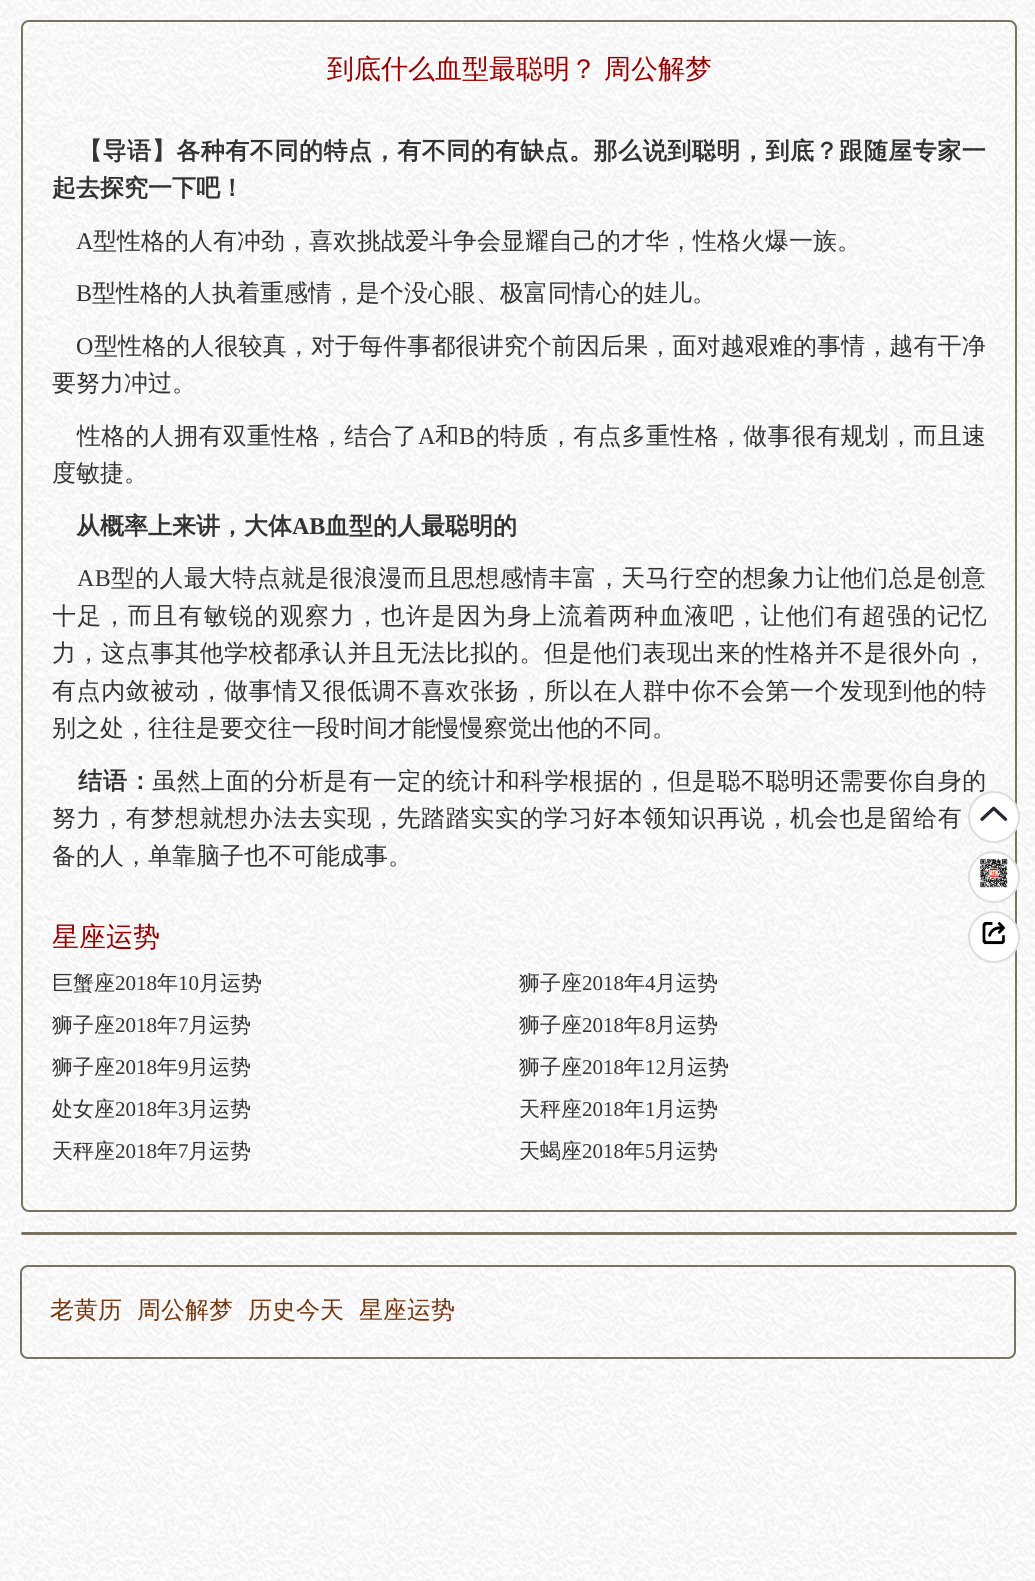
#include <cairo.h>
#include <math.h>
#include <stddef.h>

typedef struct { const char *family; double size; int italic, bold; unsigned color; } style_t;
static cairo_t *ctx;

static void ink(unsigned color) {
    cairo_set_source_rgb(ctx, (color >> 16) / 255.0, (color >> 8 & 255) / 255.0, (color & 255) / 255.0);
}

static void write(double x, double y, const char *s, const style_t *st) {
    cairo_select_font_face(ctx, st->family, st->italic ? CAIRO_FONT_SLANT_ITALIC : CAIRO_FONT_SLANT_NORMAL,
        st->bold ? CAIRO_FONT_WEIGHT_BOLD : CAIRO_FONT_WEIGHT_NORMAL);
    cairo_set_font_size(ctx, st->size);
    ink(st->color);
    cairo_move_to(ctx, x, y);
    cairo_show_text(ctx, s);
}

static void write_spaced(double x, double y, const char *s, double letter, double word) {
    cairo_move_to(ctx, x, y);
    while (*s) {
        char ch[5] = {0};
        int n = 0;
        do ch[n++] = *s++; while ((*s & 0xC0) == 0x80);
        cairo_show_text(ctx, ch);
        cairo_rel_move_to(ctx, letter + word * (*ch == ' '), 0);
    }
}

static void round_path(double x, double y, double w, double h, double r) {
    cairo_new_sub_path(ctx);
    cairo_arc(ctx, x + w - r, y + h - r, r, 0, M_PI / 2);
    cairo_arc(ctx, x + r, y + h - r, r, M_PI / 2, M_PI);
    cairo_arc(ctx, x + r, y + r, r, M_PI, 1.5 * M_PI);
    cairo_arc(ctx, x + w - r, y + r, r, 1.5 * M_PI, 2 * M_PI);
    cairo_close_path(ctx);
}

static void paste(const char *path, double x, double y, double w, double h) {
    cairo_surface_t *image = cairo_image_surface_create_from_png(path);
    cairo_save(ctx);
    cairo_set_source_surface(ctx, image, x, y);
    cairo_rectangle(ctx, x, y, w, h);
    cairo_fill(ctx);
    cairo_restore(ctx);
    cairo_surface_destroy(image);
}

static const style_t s1 = {"WenQuanYi Zen Hei", 24, 0, 1, 0x333333};
static const style_t s2 = {"Liberation Serif", 24, 0, 0, 0x333333};
static const style_t s3 = {"WenQuanYi Zen Hei Medium", 24, 0, 0, 0x333333};
static const style_t s4 = {"Liberation Serif", 24, 0, 1, 0x333333};
static const style_t s5 = {"WenQuanYi Zen Hei Medium", 27, 0, 0, 0x990000};
static const style_t s6 = {"WenQuanYi Zen Hei Medium", 21, 0, 0, 0x333333};
static const style_t s7 = {"Liberation Serif", 21, 0, 0, 0x333333};
static const style_t s8 = {"WenQuanYi Zen Hei Medium", 24, 0, 0, 0x75360d};

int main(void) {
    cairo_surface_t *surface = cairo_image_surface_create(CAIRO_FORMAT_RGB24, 1035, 1581);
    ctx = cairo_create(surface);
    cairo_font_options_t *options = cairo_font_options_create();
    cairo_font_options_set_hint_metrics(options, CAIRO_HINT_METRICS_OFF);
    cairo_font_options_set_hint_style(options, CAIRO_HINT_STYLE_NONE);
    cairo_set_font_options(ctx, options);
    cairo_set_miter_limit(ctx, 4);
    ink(0xffffff);
    cairo_paint(ctx);
    paste("pic1.png", 0, 0, 1035, 1581);
    round_path(22, 21, 994, 1190, 7);
    ink(0x797263);
    cairo_stroke(ctx);
    cairo_select_font_face(ctx, "WenQuanYi Zen Hei Medium", CAIRO_FONT_SLANT_NORMAL, CAIRO_FONT_WEIGHT_NORMAL);
    cairo_set_font_size(ctx, 27);
    ink(0x990000);
    write_spaced(327, 78, "到底什么血型最聪明？ 周公解梦", 0, -1);
    cairo_select_font_face(ctx, "WenQuanYi Zen Hei", CAIRO_FONT_SLANT_NORMAL, CAIRO_FONT_WEIGHT_BOLD);
    cairo_set_font_size(ctx, 24);
    ink(0x333333);
    write_spaced(78, 159, "【导语】各种有不同的特点，有不同的有缺点。那么说到聪明，到底？跟随屋专家一", 0.55, 0);
    write(52, 196, "起去探究一下吧！", &s1);
    write(76, 249, "A", &s2);
    write(93, 249, "型性格的人有冲劲，喜欢挑战爱斗争会显耀自己的才华，性格火爆一族。", &s3);
    write(76, 301, "B", &s2);
    write(92, 301, "型性格的人执着重感情，是个没心眼、极富同情心的娃儿。", &s3);
    cairo_select_font_face(ctx, "Liberation Serif", CAIRO_FONT_SLANT_NORMAL, CAIRO_FONT_WEIGHT_NORMAL);
    write_spaced(76, 354, "O", 0.1, 0);
    cairo_select_font_face(ctx, "WenQuanYi Zen Hei Medium", CAIRO_FONT_SLANT_NORMAL, CAIRO_FONT_WEIGHT_NORMAL);
    write_spaced(94, 354, "型性格的人很较真，对于每件事都很讲究个前因后果，面对越艰难的事情，越有干净", 0.1, 0);
    write(52, 391, "要努力冲过。", &s3);
    write_spaced(77, 444, "性格的人拥有双重性格，结合了", 0.3, 0);
    cairo_select_font_face(ctx, "Liberation Serif", CAIRO_FONT_SLANT_NORMAL, CAIRO_FONT_WEIGHT_NORMAL);
    write_spaced(418, 444, "A", 0.3, 0);
    cairo_select_font_face(ctx, "WenQuanYi Zen Hei Medium", CAIRO_FONT_SLANT_NORMAL, CAIRO_FONT_WEIGHT_NORMAL);
    write_spaced(435, 444, "和", 0.3, 0);
    cairo_select_font_face(ctx, "Liberation Serif", CAIRO_FONT_SLANT_NORMAL, CAIRO_FONT_WEIGHT_NORMAL);
    write_spaced(459, 444, "B", 0.3, 0);
    cairo_select_font_face(ctx, "WenQuanYi Zen Hei Medium", CAIRO_FONT_SLANT_NORMAL, CAIRO_FONT_WEIGHT_NORMAL);
    write_spaced(476, 444, "的特质，有点多重性格，做事很有规划，而且速", 0.3, 0);
    write(52, 481, "度敏捷。", &s3);
    write(76, 534, "从概率上来讲，大体", &s1);
    write(292, 534, "AB", &s4);
    write(325, 534, "血型的人最聪明的", &s1);
    cairo_select_font_face(ctx, "Liberation Serif", CAIRO_FONT_SLANT_NORMAL, CAIRO_FONT_WEIGHT_NORMAL);
    write_spaced(77, 586, "AB", 0.3, 0);
    cairo_select_font_face(ctx, "WenQuanYi Zen Hei Medium", CAIRO_FONT_SLANT_NORMAL, CAIRO_FONT_WEIGHT_NORMAL);
    write_spaced(111, 586, "型的人最大特点就是很浪漫而且思想感情丰富，天马行空的想象力让他们总是创意", 0.3, 0);
    cairo_save(ctx);
    cairo_rectangle(ctx, 53, 560, 933, 187);
    cairo_clip(ctx);
    write_spaced(52, 624, "十足，而且有敏锐的观察力，也许是因为身上流着两种血液吧，让他们有超强的记忆", 1.3, 0);
    cairo_restore(ctx);
    write_spaced(52, 661, "力，这点事其他学校都承认并且无法比拟的。但是他们表现出来的性格并不是很外向，", 0.6, 0);
    write_spaced(52, 699, "有点内敛被动，做事情又很低调不喜欢张扬，所以在人群中你不会第一个发现到他的特", 0.6, 0);
    write(52, 736, "别之处，往往是要交往一段时间才能慢慢察觉出他的不同。", &s3);
    cairo_select_font_face(ctx, "WenQuanYi Zen Hei", CAIRO_FONT_SLANT_NORMAL, CAIRO_FONT_WEIGHT_BOLD);
    write_spaced(78, 789, "结语：", 1, 0);
    cairo_select_font_face(ctx, "WenQuanYi Zen Hei Medium", CAIRO_FONT_SLANT_NORMAL, CAIRO_FONT_WEIGHT_NORMAL);
    write_spaced(152, 789, "虽然上面的分析是有一定的统计和科学根据的，但是聪不聪明还需要你自身的", 0.55, 0);
    write_spaced(52, 826, "努力，有梦想就想办法去实现，先踏踏实实的学习好本领知识再说，机会也是留给有", 0.6, 0);
    write(52, 864, "备的人，单靠脑子也不可能成事。", &s3);
    write(52, 946, "星座运势", &s5);
    write(52, 990, "巨蟹座", &s6);
    write(115, 990, "2018", &s7);
    write(157, 990, "年", &s6);
    write(178, 990, "10", &s7);
    write(199, 990, "月运势", &s6);
    write(519, 990, "狮子座", &s6);
    write(582, 990, "2018", &s7);
    write(624, 990, "年", &s6);
    write(645, 990, "4", &s7);
    write(655, 990, "月运势", &s6);
    write(52, 1032, "狮子座", &s6);
    write(115, 1032, "2018", &s7);
    write(157, 1032, "年", &s6);
    write(178, 1032, "7", &s7);
    write(188, 1032, "月运势", &s6);
    write(519, 1032, "狮子座", &s6);
    write(582, 1032, "2018", &s7);
    write(624, 1032, "年", &s6);
    write(645, 1032, "8", &s7);
    write(655, 1032, "月运势", &s6);
    write(52, 1074, "狮子座", &s6);
    write(115, 1074, "2018", &s7);
    write(157, 1074, "年", &s6);
    write(178, 1074, "9", &s7);
    write(188, 1074, "月运势", &s6);
    write(519, 1074, "狮子座", &s6);
    write(582, 1074, "2018", &s7);
    write(624, 1074, "年", &s6);
    write(645, 1074, "12", &s7);
    write(666, 1074, "月运势", &s6);
    write(52, 1116, "处女座", &s6);
    write(115, 1116, "2018", &s7);
    write(157, 1116, "年", &s6);
    write(178, 1116, "3", &s7);
    write(188, 1116, "月运势", &s6);
    write(519, 1116, "天秤座", &s6);
    write(582, 1116, "2018", &s7);
    write(624, 1116, "年", &s6);
    write(645, 1116, "1", &s7);
    write(655, 1116, "月运势", &s6);
    write(52, 1158, "天秤座", &s6);
    write(115, 1158, "2018", &s7);
    write(157, 1158, "年", &s6);
    write(178, 1158, "7", &s7);
    write(188, 1158, "月运势", &s6);
    write(519, 1158, "天蝎座", &s6);
    write(582, 1158, "2018", &s7);
    write(624, 1158, "年", &s6);
    write(645, 1158, "5", &s7);
    write(655, 1158, "月运势", &s6);
    ink(0x797263);
    round_path(21, 1232, 996, 3, 1.5);
    cairo_fill(ctx);
    ink(0xffffff);
    cairo_arc(ctx, 994, 817, 25, 0, 2 * M_PI);
    cairo_fill_preserve(ctx);
    ink(0xdddddd);
    cairo_stroke(ctx);
    paste("pic2.png", 980, 806, 28, 15);
    ink(0xffffff);
    cairo_arc(ctx, 994, 877, 25, 0, 2 * M_PI);
    cairo_fill_preserve(ctx);
    ink(0xdddddd);
    cairo_stroke(ctx);
    paste("pic3.png", 980, 858, 28, 30);
    ink(0xffffff);
    cairo_arc(ctx, 994, 937, 25, 0, 2 * M_PI);
    cairo_fill_preserve(ctx);
    ink(0xdddddd);
    cairo_stroke(ctx);
    paste("pic4.png", 982, 921, 23, 24);
    round_path(21, 1266, 994, 92, 7);
    ink(0x797263);
    cairo_stroke(ctx);
    write(50, 1318, "老黄历", &s8);
    write(137, 1318, "周公解梦", &s8);
    write(248, 1318, "历史今天", &s8);
    write(359, 1318, "星座运势", &s8);
    cairo_surface_write_to_png(surface, "screenshot.png");
    cairo_font_options_destroy(options);
    cairo_destroy(ctx);
    cairo_surface_destroy(surface);
    return 0;
}
